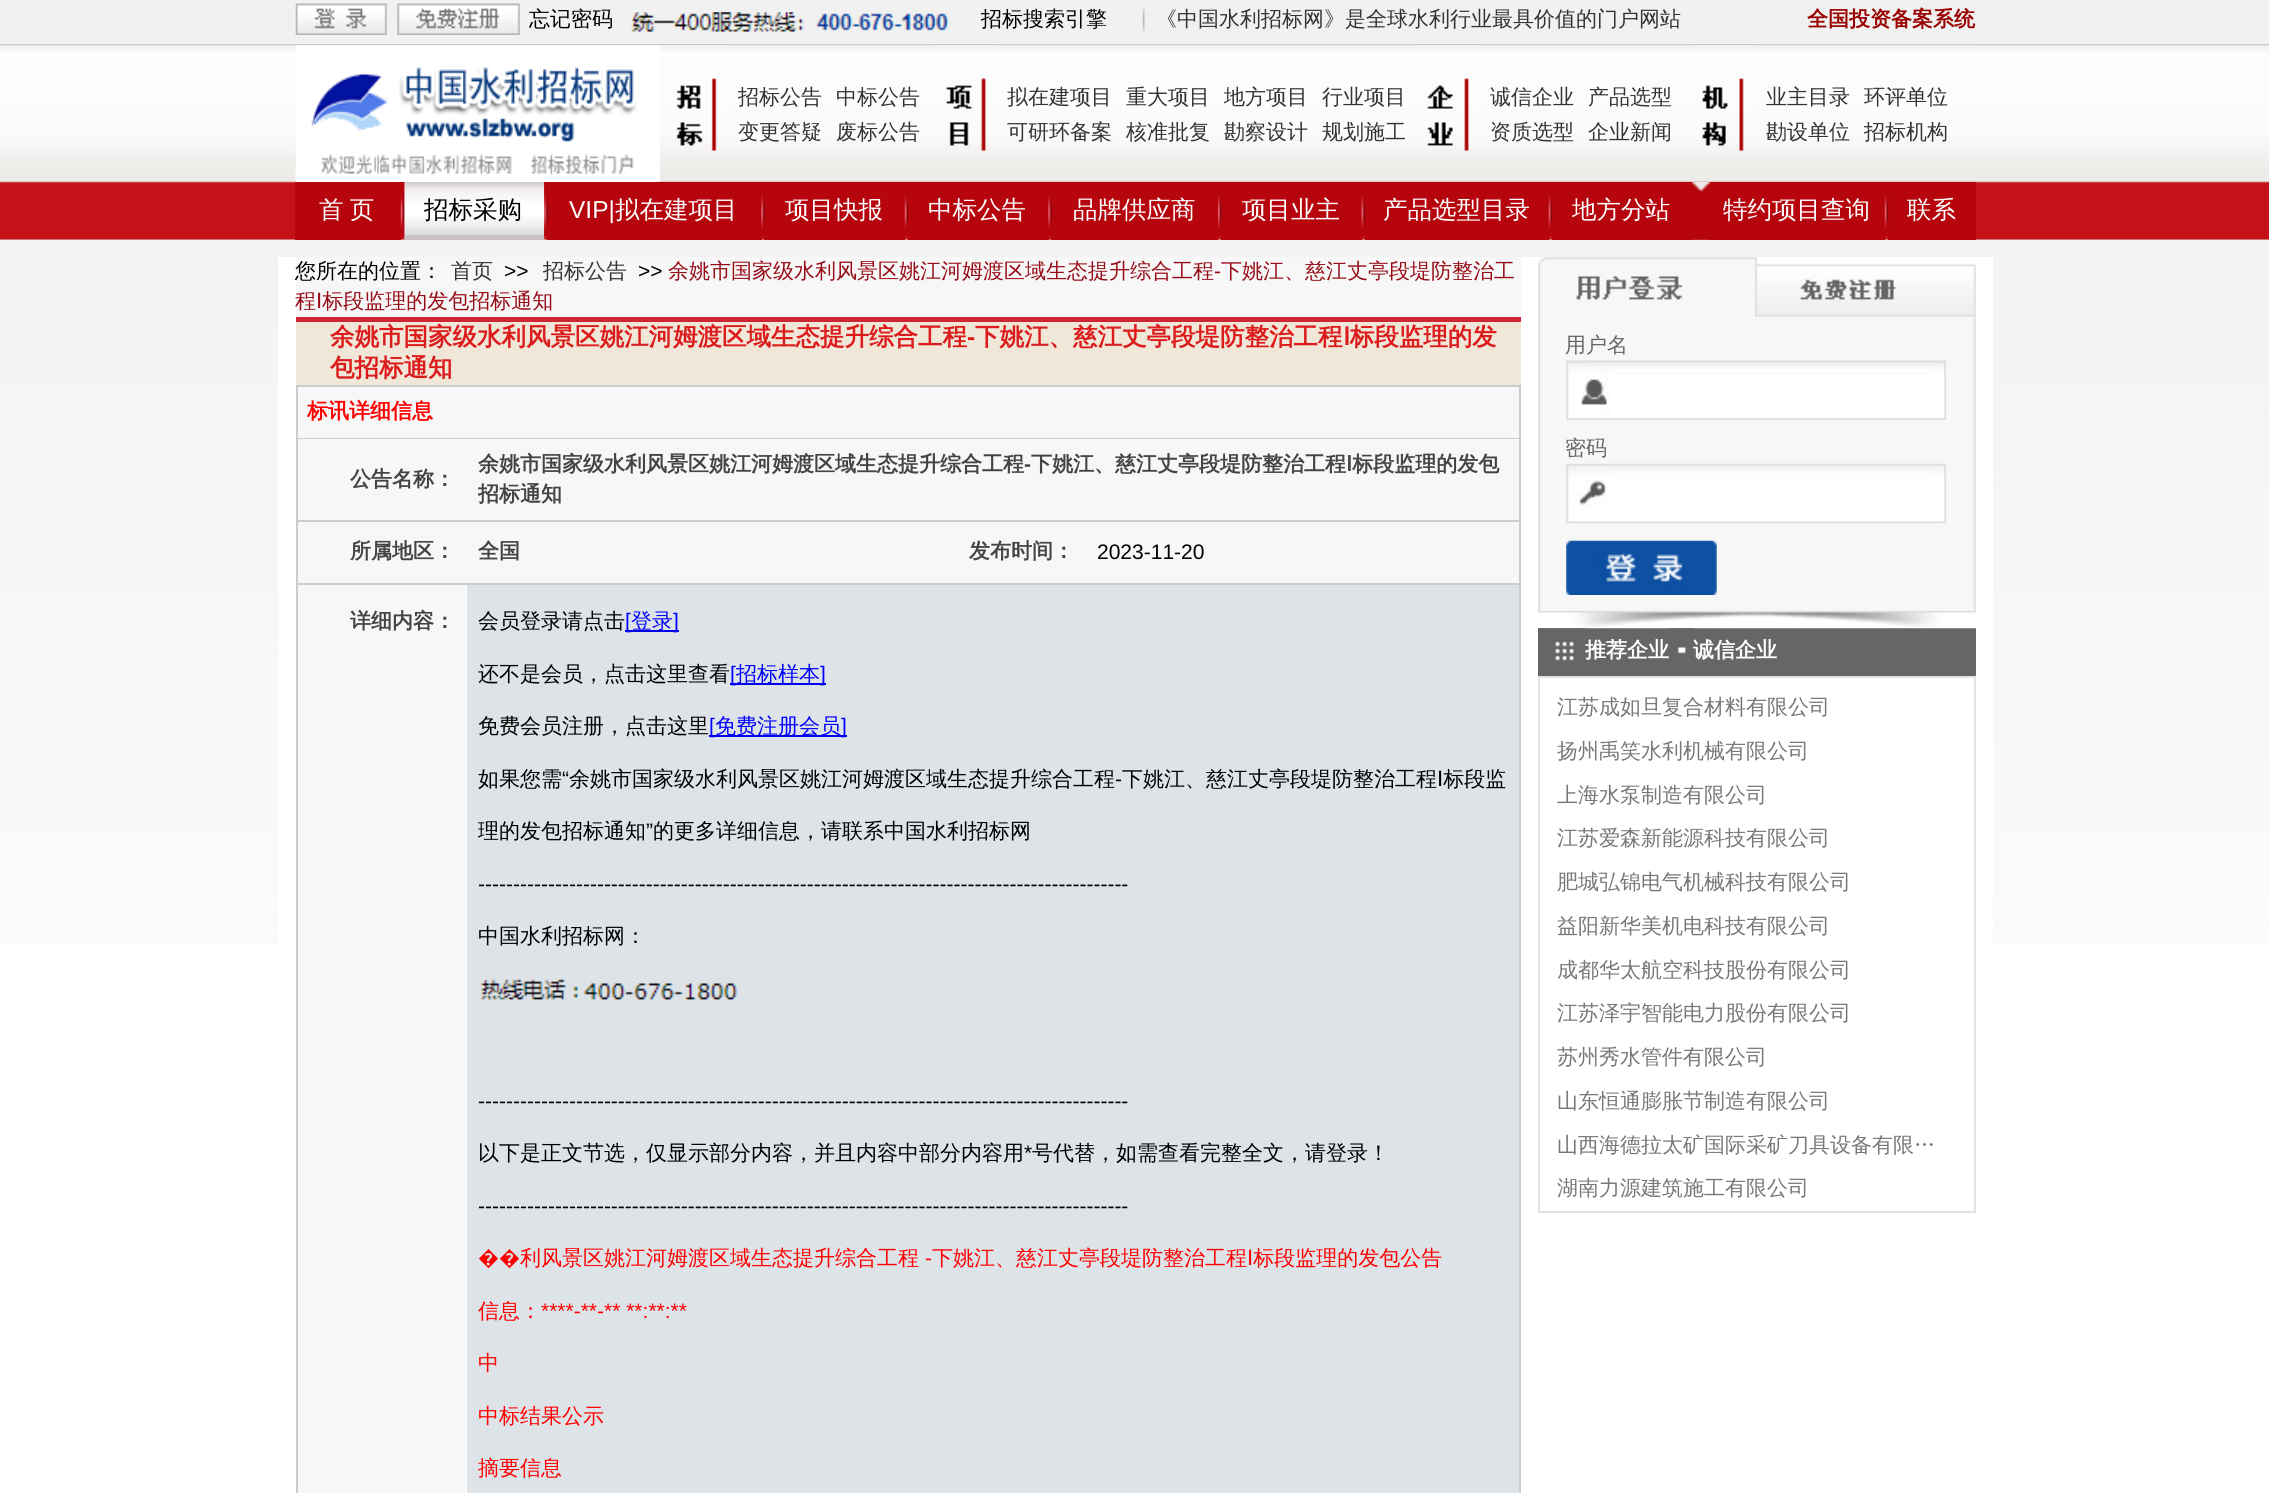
#include <cairo.h>
#include <math.h>
#include <stddef.h>

typedef struct { const char *family; double size; int italic, bold; unsigned color; } style_t;
static cairo_t *ctx;

static void ink(unsigned color) {
    cairo_set_source_rgb(ctx, (color >> 16) / 255.0, (color >> 8 & 255) / 255.0, (color & 255) / 255.0);
}

static void write(double x, double y, const char *s, const style_t *st) {
    cairo_select_font_face(ctx, st->family, st->italic ? CAIRO_FONT_SLANT_ITALIC : CAIRO_FONT_SLANT_NORMAL,
        st->bold ? CAIRO_FONT_WEIGHT_BOLD : CAIRO_FONT_WEIGHT_NORMAL);
    cairo_set_font_size(ctx, st->size);
    ink(st->color);
    cairo_move_to(ctx, x, y);
    cairo_show_text(ctx, s);
}

static void write_spaced(double x, double y, const char *s, double letter, double word) {
    cairo_move_to(ctx, x, y);
    while (*s) {
        char ch[5] = {0};
        int n = 0;
        do ch[n++] = *s++; while ((*s & 0xC0) == 0x80);
        cairo_show_text(ctx, ch);
        cairo_rel_move_to(ctx, letter + word * (*ch == ' '), 0);
    }
}

static void block(double x, double y, double w, double h, unsigned color) {
    ink(color);
    cairo_rectangle(ctx, x, y, w, h);
    cairo_fill(ctx);
}

static void paste(const char *path, double x, double y, double w, double h) {
    cairo_surface_t *image = cairo_image_surface_create_from_png(path);
    cairo_save(ctx);
    cairo_set_source_surface(ctx, image, x, y);
    cairo_rectangle(ctx, x, y, w, h);
    cairo_fill(ctx);
    cairo_restore(ctx);
    cairo_surface_destroy(image);
}

static const style_t s1 = {"WenQuanYi Zen Hei Medium", 21, 0, 0, 0x000000};
static const style_t s2 = {"WenQuanYi Zen Hei Medium", 21, 0, 0, 0x333333};
static const style_t s3 = {"WenQuanYi Zen Hei", 21, 0, 1, 0x990000};
static const style_t s4 = {"WenQuanYi Zen Hei Medium", 24.5, 0, 0, 0x000000};
static const style_t s5 = {"Liberation Sans", 24.5, 0, 0, 0xffffff};
static const style_t s6 = {"WenQuanYi Zen Hei Medium", 24.5, 0, 0, 0xffffff};
static const style_t s7 = {"Liberation Sans", 21, 0, 0, 0x000000};
static const style_t s8 = {"WenQuanYi Zen Hei Medium", 21, 0, 0, 0x970b16};
static const style_t s9 = {"Liberation Sans", 21, 0, 0, 0x970b16};
static const style_t s10 = {"DejaVu Sans", 21, 0, 0, 0x970b16};
static const style_t s11 = {"WenQuanYi Zen Hei", 24.5, 0, 1, 0xdc1c1c};
static const style_t s12 = {"Liberation Sans", 24.5, 0, 1, 0xdc1c1c};
static const style_t s13 = {"DejaVu Sans", 24.5, 0, 1, 0xdc1c1c};
static const style_t s14 = {"WenQuanYi Zen Hei", 21, 0, 1, 0xff0000};
static const style_t s15 = {"WenQuanYi Zen Hei", 21, 0, 1, 0x444444};
static const style_t s16 = {"Liberation Sans", 21, 0, 1, 0x444444};
static const style_t s17 = {"DejaVu Sans", 21, 0, 1, 0x444444};
static const style_t s18 = {"Liberation Sans", 21, 0, 0, 0x0000ff};
static const style_t s19 = {"WenQuanYi Zen Hei Medium", 21, 0, 0, 0x0000ff};
static const style_t s20 = {"DejaVu Sans", 21, 0, 0, 0x000000};
static const style_t s21 = {"Noto Sans", 21, 0, 0, 0xff0000};
static const style_t s22 = {"WenQuanYi Zen Hei Medium", 21, 0, 0, 0xff0000};
static const style_t s23 = {"Liberation Sans", 21, 0, 0, 0xff0000};
static const style_t s24 = {"DejaVu Sans", 21, 0, 0, 0xff0000};
static const style_t s25 = {"WenQuanYi Zen Hei Medium", 21, 0, 0, 0x666666};
static const style_t s26 = {"WenQuanYi Zen Hei", 21, 0, 1, 0xffffff};
static const style_t s27 = {"WenQuanYi Zen Hei Medium", 21, 0, 0, 0x777777};

int main(void) {
    cairo_surface_t *surface = cairo_image_surface_create(CAIRO_FORMAT_RGB24, 2269, 1493);
    ctx = cairo_create(surface);
    cairo_font_options_t *options = cairo_font_options_create();
    cairo_font_options_set_hint_metrics(options, CAIRO_HINT_METRICS_OFF);
    cairo_font_options_set_hint_style(options, CAIRO_HINT_STYLE_NONE);
    cairo_set_font_options(ctx, options);
    cairo_set_miter_limit(ctx, 4);
    ink(0xffffff);
    cairo_paint(ctx);
    paste("pic1.png", 0, 0, 2269, 944);
    block(0, 44, 2269, 2, 0xcccccc);
    paste("pic2.png", 295, 3, 92, 32);
    paste("pic3.png", 397, 3, 123, 32);
    write(529, 26, "忘记密码", &s1);
    paste("pic4.png", 631, 12, 318, 20);
    write(981, 26, "招标搜索引擎", &s1);
    paste("pic5.png", 1142, 5, 3, 30);
    write(1156, 26, "《中国水利招标网》是全球水利行业最具价值的门户网站", &s2);
    write(1807, 26, "全国投资备案系统", &s3);
    paste("pic6.png", 0, 45, 2269, 195);
    paste("pic7.png", 296, 45, 1680, 137);
    paste("pic8.png", 295, 45, 365, 137);
    paste("pic9.png", 663, 45, 67, 106);
    write(738, 104, "招标公告", &s2);
    write(836, 104, "中标公告", &s2);
    write(738, 139, "变更答疑", &s2);
    write(836, 139, "废标公告", &s2);
    paste("pic10.png", 933, 45, 66, 106);
    write(1007, 104, "拟在建项目", &s2);
    write(1126, 104, "重大项目", &s2);
    write(1224, 104, "地方项目", &s2);
    write(1322, 104, "行业项目", &s2);
    write(1007, 139, "可研环备案", &s2);
    write(1126, 139, "核准批复", &s2);
    write(1224, 139, "勘察设计", &s2);
    write(1322, 139, "规划施工", &s2);
    paste("pic11.png", 1416, 45, 66, 106);
    write(1490, 104, "诚信企业", &s2);
    write(1588, 104, "产品选型", &s2);
    write(1490, 139, "资质选型", &s2);
    write(1588, 139, "企业新闻", &s2);
    paste("pic12.png", 1691, 45, 66, 106);
    write(1766, 104, "业主目录", &s2);
    write(1864, 104, "环评单位", &s2);
    write(1766, 139, "勘设单位", &s2);
    write(1864, 139, "招标机构", &s2);
    block(295, 182, 106, 58, 0xb6050c);
    cairo_set_font_size(ctx, 24.5);
    ink(0xffffff);
    write_spaced(319, 218, "首 页", 0, -1);
    paste("pic14.png", 404, 182, 141, 58);
    paste("pic13.png", 400, 182, 5, 55);
    write(424, 218, "招标采购", &s4);
    block(547, 182, 215, 58, 0xb6050c);
    paste("pic15.png", 544, 182, 4, 55);
    write(569, 218, "VIP|", &s5);
    write(615, 218, "拟在建项目", &s6);
    block(764, 182, 141, 58, 0xb6050c);
    paste("pic16.png", 761, 182, 4, 54);
    write(785, 218, "项目快报", &s6);
    block(908, 182, 141, 58, 0xb6050c);
    paste("pic17.png", 904, 182, 5, 54);
    write(928, 218, "中标公告", &s6);
    block(1051, 182, 167, 58, 0xb6050c);
    paste("pic16.png", 1048, 182, 4, 54);
    write(1073, 218, "品牌供应商", &s6);
    block(1221, 182, 141, 58, 0xb6050c);
    paste("pic18.png", 1218, 182, 4, 54);
    write(1242, 218, "项目业主", &s6);
    paste("pic19.png", 1361, 182, 4, 54);
    block(1365, 182, 184, 58, 0xb6050c);
    write(1383, 218, "产品选型目录", &s6);
    block(1552, 182, 141, 58, 0xb6050c);
    paste("pic20.png", 1548, 182, 5, 54);
    write(1572, 218, "地方分站", &s6);
    block(1709, 182, 176, 58, 0xb6050c);
    paste("pic21.png", 1692, 182, 18, 58);
    write(1723, 218, "特约项目查询", &s6);
    block(1888, 182, 88, 58, 0xb6050c);
    paste("pic17.png", 1884, 182, 5, 54);
    write(1907, 218, "联系", &s6);
    block(278, 257, 1715, 687, 0xffffff);
    block(296, 257, 1225, 60, 0xf7f7f7);
    write(295, 278, "您所在的位置：", &s1);
    write(451, 278, "首页", &s2);
    write(504, 278, ">>", &s7);
    write(543, 278, "招标公告", &s2);
    write(638, 278, ">>", &s7);
    write(668, 278, "余姚市国家级水利风景区姚江河姆渡区域生态提升综合工程", &s8);
    write(1214, 278, "-", &s9);
    write(1221, 278, "下姚江、慈江丈亭段堤防整治工", &s8);
    write(295, 308, "程 标段监理的发包招标通知", &s8);
    write(316, 308, "Ⅰ", &s10);
    block(296, 317, 1225, 5, 0xcf2431);
    block(296, 322, 1225, 63, 0xf1e7d9);
    write(330, 345, "余姚市国家级水利风景区姚江河姆渡区域生态提升综合工程", &s11);
    write(975, 345, "下姚江、慈江丈亭段堤防整治工程 标段监理的发", &s11);
    write(967, 345, "-", &s12);
    write(1343, 345, "Ⅰ", &s13);
    write(330, 376, "包招标通知", &s11);
    block(296, 385, 1225, 1108, 0xcccccc);
    block(298, 387, 1221, 51, 0xf7f7f7);
    write(307, 418, "标讯详细信息", &s14);
    block(298, 439, 1221, 81, 0xf7f7f7);
    write(350, 486, "公告名称：", &s15);
    write(478, 471, "余姚市国家级水利风景区姚江河姆渡区域生态提升综合工程", &s15);
    write(1031, 471, "下姚江、慈江丈亭段堤防整治工程 标段监理的发包", &s15);
    write(1024, 471, "-", &s16);
    write(1346, 471, "Ⅰ", &s17);
    write(478, 501, "招标通知", &s15);
    block(298, 522, 1221, 61, 0xf7f7f7);
    write(350, 558, "所属地区：", &s15);
    write(478, 558, "全国", &s15);
    write(969, 558, "发布时间：", &s15);
    write(1097, 559, "2023-11-20", &s7);
    block(466, 585, 1, 908, 0xffffff);
    block(298, 585, 168, 908, 0xf7f7f7);
    write(350, 628, "详细内容：", &s15);
    block(467, 585, 1052, 908, 0xdee3e7);
    write(478, 628, "会员登录请点击", &s1);
    block(625, 630, 54, 2, 0x0000ee);
    write(625, 628, "[", &s18);
    write(631, 628, "登录", &s19);
    write(673, 628, "]", &s18);
    write(478, 681, "还不是会员，点击这里查看", &s1);
    block(730, 683, 96, 2, 0x0000ee);
    write(730, 681, "[", &s18);
    write(736, 681, "招标样本", &s19);
    write(820, 681, "]", &s18);
    write(478, 733, "免费会员注册，点击这里", &s1);
    block(709, 735, 138, 2, 0x0000ee);
    write(709, 733, "[", &s18);
    write(715, 733, "免费注册会员", &s19);
    write(841, 733, "]", &s18);
    write(478, 786, "如果您需", &s1);
    write(569, 786, "余姚市国家级水利风景区姚江河姆渡区域生态提升综合工程", &s1);
    write(1122, 786, "下姚江、慈江丈亭段堤防整治工程 标段监", &s1);
    write(562, 786, "“", &s7);
    write(1437, 786, "Ⅰ", &s20);
    write(1115, 786, "-", &s7);
    write(478, 838, "理的发包招标通知", &s1);
    write(646, 838, "”", &s7);
    write(653, 838, "的更多详细信息，请联系中国水利招标网", &s1);
    write(478, 891, "---------------------------------------------------------------------------------------------", &s7);
    write(478, 943, "中国水利招标网：", &s1);
    paste("pic22.png", 480, 977, 260, 27);
    write(478, 1108, "---------------------------------------------------------------------------------------------", &s7);
    write(478, 1160, "以下是正文节选，仅显示部分内容，并且内容中部分内容用", &s1);
    write(1024, 1160, "*", &s7);
    write(1032, 1160, "号代替，如需查看完整全文，请登录！", &s1);
    write(478, 1213, "---------------------------------------------------------------------------------------------", &s7);
    write(478, 1265, "��", &s21);
    write(520, 1265, "利风景区姚江河姆渡区域生态提升综合工程", &s22);
    write(932, 1265, "下姚江、慈江丈亭段堤防整治工程 标段监理的发包公告", &s22);
    write(925, 1265, "-", &s23);
    write(1247, 1265, "Ⅰ", &s24);
    write(478, 1318, "信息：", &s22);
    write(541, 1318, "****-**-** **:**:**", &s23);
    write(478, 1370, "中", &s22);
    write(478, 1423, "中标结果公示", &s22);
    write(478, 1475, "摘要信息", &s22);
    paste("pic25.png", 1538, 316, 438, 295);
    paste("pic23.png", 1538, 257, 219, 60);
    paste("pic24.png", 1757, 264, 219, 53);
    write(1565, 352, "用户名", &s25);
    paste("pic26.png", 1566, 360, 380, 60);
    block(1615, 369, 315, 3, 0xffffff);
    write(1565, 455, "密码", &s25);
    paste("pic27.png", 1566, 463, 380, 61);
    block(1615, 473, 315, 2, 0xffffff);
    paste("pic28.png", 1566, 540, 151, 55);
    block(1538, 628, 438, 48, 0x666666);
    paste("pic29.png", 1538, 610, 438, 19);
    paste("pic30.png", 1538, 628, 48, 33);
    write(1585, 657, "推荐企业", &s26);
    paste("pic31.png", 1669, 628, 25, 26);
    write(1693, 657, "诚信企业", &s26);
    cairo_rectangle(ctx, 1539, 677, 436, 535);
    ink(0xdee3e7);
    cairo_stroke(ctx);
    write(1557, 714, "江苏成如旦复合材料有限公司", &s27);
    write(1557, 758, "扬州禹笑水利机械有限公司", &s27);
    write(1557, 802, "上海水泵制造有限公司", &s27);
    write(1557, 845, "江苏爱森新能源科技有限公司", &s27);
    write(1557, 889, "肥城弘锦电气机械科技有限公司", &s27);
    write(1557, 933, "益阳新华美机电科技有限公司", &s27);
    write(1557, 977, "成都华太航空科技股份有限公司", &s27);
    write(1557, 1020, "江苏泽宇智能电力股份有限公司", &s27);
    write(1557, 1064, "苏州秀水管件有限公司", &s27);
    write(1557, 1108, "山东恒通膨胀节制造有限公司", &s27);
    write(1557, 1152, "山西海德拉太矿国际采矿刀具设备有限…", &s27);
    write(1557, 1195, "湖南力源建筑施工有限公司", &s27);
    cairo_surface_write_to_png(surface, "screenshot.png");
    cairo_font_options_destroy(options);
    cairo_destroy(ctx);
    cairo_surface_destroy(surface);
    return 0;
}
